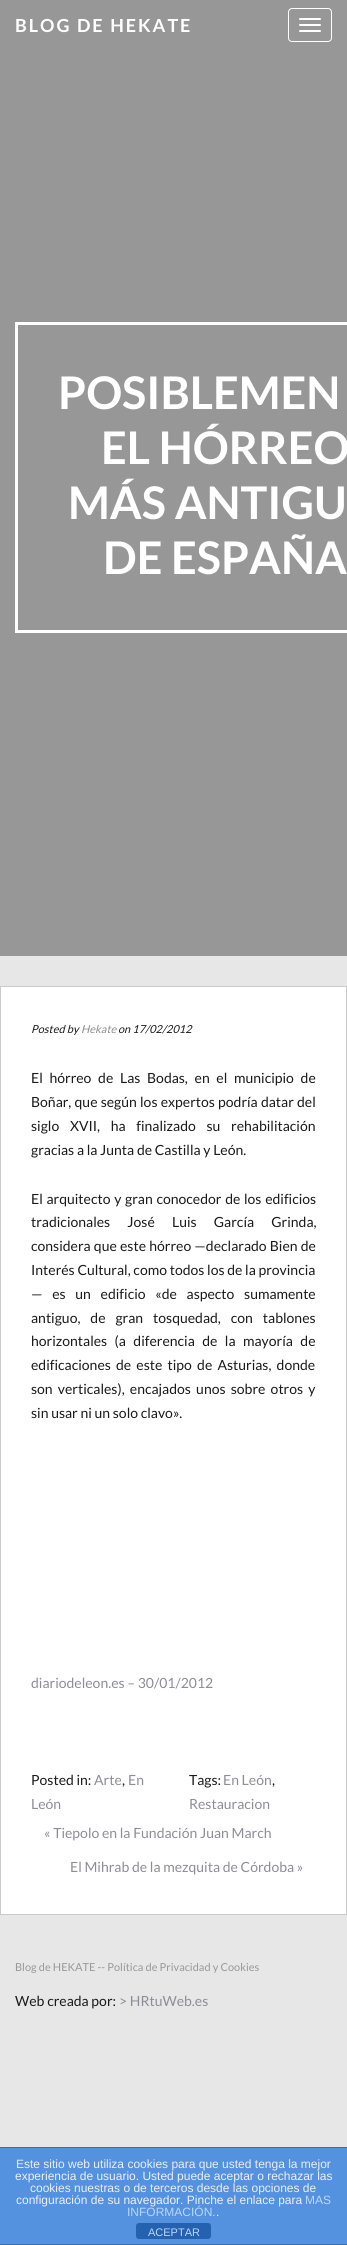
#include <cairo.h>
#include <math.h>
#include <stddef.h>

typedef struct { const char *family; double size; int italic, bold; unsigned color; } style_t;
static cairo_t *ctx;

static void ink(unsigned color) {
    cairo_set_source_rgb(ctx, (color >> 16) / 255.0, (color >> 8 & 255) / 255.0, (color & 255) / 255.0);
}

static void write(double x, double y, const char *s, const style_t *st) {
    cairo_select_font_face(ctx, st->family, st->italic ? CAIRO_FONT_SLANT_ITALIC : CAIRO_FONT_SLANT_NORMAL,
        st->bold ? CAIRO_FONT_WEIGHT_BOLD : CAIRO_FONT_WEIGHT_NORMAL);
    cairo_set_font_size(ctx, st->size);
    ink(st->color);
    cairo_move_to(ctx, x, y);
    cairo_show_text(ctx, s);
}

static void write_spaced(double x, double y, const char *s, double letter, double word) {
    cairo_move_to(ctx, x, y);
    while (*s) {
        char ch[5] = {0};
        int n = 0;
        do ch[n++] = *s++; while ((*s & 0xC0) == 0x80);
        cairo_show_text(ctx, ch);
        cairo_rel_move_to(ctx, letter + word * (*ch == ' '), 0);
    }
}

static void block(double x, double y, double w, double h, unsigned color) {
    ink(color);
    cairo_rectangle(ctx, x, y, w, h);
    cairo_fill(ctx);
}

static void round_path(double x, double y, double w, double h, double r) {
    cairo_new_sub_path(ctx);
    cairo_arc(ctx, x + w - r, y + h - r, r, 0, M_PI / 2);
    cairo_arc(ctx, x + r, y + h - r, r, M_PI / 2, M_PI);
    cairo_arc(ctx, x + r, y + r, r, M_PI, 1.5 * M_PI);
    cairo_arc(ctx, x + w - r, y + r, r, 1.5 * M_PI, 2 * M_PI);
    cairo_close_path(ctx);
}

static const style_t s1 = {"Lato", 45, 0, 1, 0xffffff};
static const style_t s2 = {"Lato", 11, 1, 0, 0x1a1a1a};
static const style_t s3 = {"Lato", 11, 1, 0, 0x8d8d95};
static const style_t s4 = {"Lato", 14, 0, 0, 0x1a1a1a};
static const style_t s5 = {"Lato", 14, 0, 0, 0x8d8d95};
static const style_t s6 = {"Lato", 11, 0, 0, 0x989898};
static const style_t s7 = {"Liberation Sans", 12, 0, 0, 0xeeeeee};
static const style_t s8 = {"Liberation Sans", 12, 0, 0, 0xb7d7ff};
static const style_t s9 = {"Liberation Sans", 11, 0, 0, 0xb7d7ff};

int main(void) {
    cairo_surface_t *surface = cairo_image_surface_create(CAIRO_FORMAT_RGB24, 347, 2245);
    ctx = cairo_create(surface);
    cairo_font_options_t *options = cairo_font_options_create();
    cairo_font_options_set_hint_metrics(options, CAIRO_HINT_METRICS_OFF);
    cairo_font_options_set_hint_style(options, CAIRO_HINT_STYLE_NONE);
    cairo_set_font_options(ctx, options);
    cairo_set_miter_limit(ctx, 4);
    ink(0xe7e7e7);
    cairo_paint(ctx);
    block(0, 0, 347, 956, 0x979797);
    cairo_select_font_face(ctx, "Lato", CAIRO_FONT_SLANT_NORMAL, CAIRO_FONT_WEIGHT_BOLD);
    cairo_set_font_size(ctx, 18);
    ink(0xffffff);
    write_spaced(15, 32, "BLOG DE HEKATE", 2, 0);
    round_path(288.5, 8.5, 43, 33, 3.5);
    cairo_set_line_width(ctx, 1);
    cairo_stroke(ctx);
    round_path(299, 18, 22, 2, 1);
    cairo_fill(ctx);
    round_path(299, 24, 22, 2, 1);
    cairo_fill(ctx);
    round_path(299, 30, 22, 2, 1);
    cairo_fill(ctx);
    cairo_rectangle(ctx, 16.5, 323.5, 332, 308);
    cairo_set_line_width(ctx, 3);
    cairo_stroke(ctx);
    write(58, 409, "POSIBLEMEN", &s1);
    write(101, 464, "EL HÓRREO", &s1);
    write(68, 519, "MÁS ANTIGU", &s1);
    write(103, 574, "DE ESPAÑA", &s1);
    cairo_rectangle(ctx, 0.5, 986.5, 346, 928);
    cairo_fill_preserve(ctx);
    ink(0xcacaca);
    cairo_set_line_width(ctx, 1);
    cairo_stroke(ctx);
    write(31, 1033, "Posted by", &s2);
    write(81, 1033, "Hekate", &s3);
    write(118, 1033, "on 17/02/2012", &s2);
    cairo_select_font_face(ctx, "Lato", CAIRO_FONT_SLANT_NORMAL, CAIRO_FONT_WEIGHT_NORMAL);
    cairo_set_font_size(ctx, 14);
    write_spaced(31, 1083, "El hórreo de Las Bodas, en el municipio de", 0, 4);
    write_spaced(31, 1107, "Boñar, que según los expertos podría datar del", 0, 0.5);
    write_spaced(31, 1131, "siglo XVII, ha finalizado su rehabilitación", 0, 8);
    write(31, 1155, "gracias a la Junta de Castilla y León.", &s4);
    write_spaced(31, 1204, "El arquitecto y gran conocedor de los edificios", 0, 1);
    write_spaced(31, 1227, "tradicionales José Luis García Grinda,", 0, 14.5);
    write_spaced(31, 1251, "considera que este hórreo —declarado Bien de", 0, 0.5);
    write(31, 1275, "Interés Cultural, como todos los de la provincia", &s4);
    write_spaced(31, 1299, "— es un edificio «de aspecto sumamente", 0, 7);
    write_spaced(31, 1323, "antiguo, de gran tosquedad, con tablones", 0, 7.25);
    write_spaced(31, 1346, "horizontales (a diferencia de la mayoría de", 0, 4.75);
    write_spaced(31, 1370, "edificaciones de este tipo de Asturias, donde", 0, 2.5);
    write_spaced(31, 1394, "son verticales), encajados unos sobre otros y", 0, 2.5);
    write(31, 1418, "sin usar ni un solo clavo».", &s4);
    write(31, 1688, "diariodeleon.es – 30/01/2012", &s5);
    write(31, 1785, "Posted in:", &s4);
    write(94, 1785, "Arte", &s5);
    write(122, 1785, ",", &s4);
    write(128, 1785, "En", &s5);
    write(31, 1809, "León", &s5);
    write(189, 1785, "Tags:", &s4);
    write(223, 1785, "En León", &s5);
    write(272, 1785, ",", &s4);
    write(189, 1809, "Restauracion", &s5);
    write(44, 1838, "« Tiepolo en la Fundación Juan March", &s5);
    write(70, 1872, "El Mihrab de la mezquita de Córdoba »", &s5);
    write(15, 1971, "Blog de HEKATE -- Política de Privacidad y Cookies", &s6);
    write(15, 2006, "Web creada por:", &s4);
    write(119, 2006, "> HRtuWeb.es", &s5);
    block(0, 2148, 347, 96, 0x5492e0);
    block(0, 2147, 347, 1, 0x3f6da7);
    block(0, 2244, 347, 1, 0x3f6da7);
    write(16, 2168, "Este sitio web utiliza cookies para que usted tenga la mejor", &s7);
    write(15, 2180, "experiencia de usuario. Usted puede aceptar o rechazar las", &s7);
    write(30, 2192, "cookies nuestras o de terceros desde las opciones de", &s7);
    write(16, 2204, "configuración de su navegador. Pinche el enlace para", &s7);
    write(305, 2204, "MAS", &s8);
    write(127, 2216, "INFORMACIÓN.", &s8);
    write(216, 2216, ".", &s7);
    ink(0x2462b0);
    round_path(136, 2223, 75, 16, 3);
    cairo_fill(ctx);
    write(148, 2236, "ACEPTAR", &s9);
    cairo_surface_write_to_png(surface, "screenshot.png");
    cairo_font_options_destroy(options);
    cairo_destroy(ctx);
    cairo_surface_destroy(surface);
    return 0;
}
